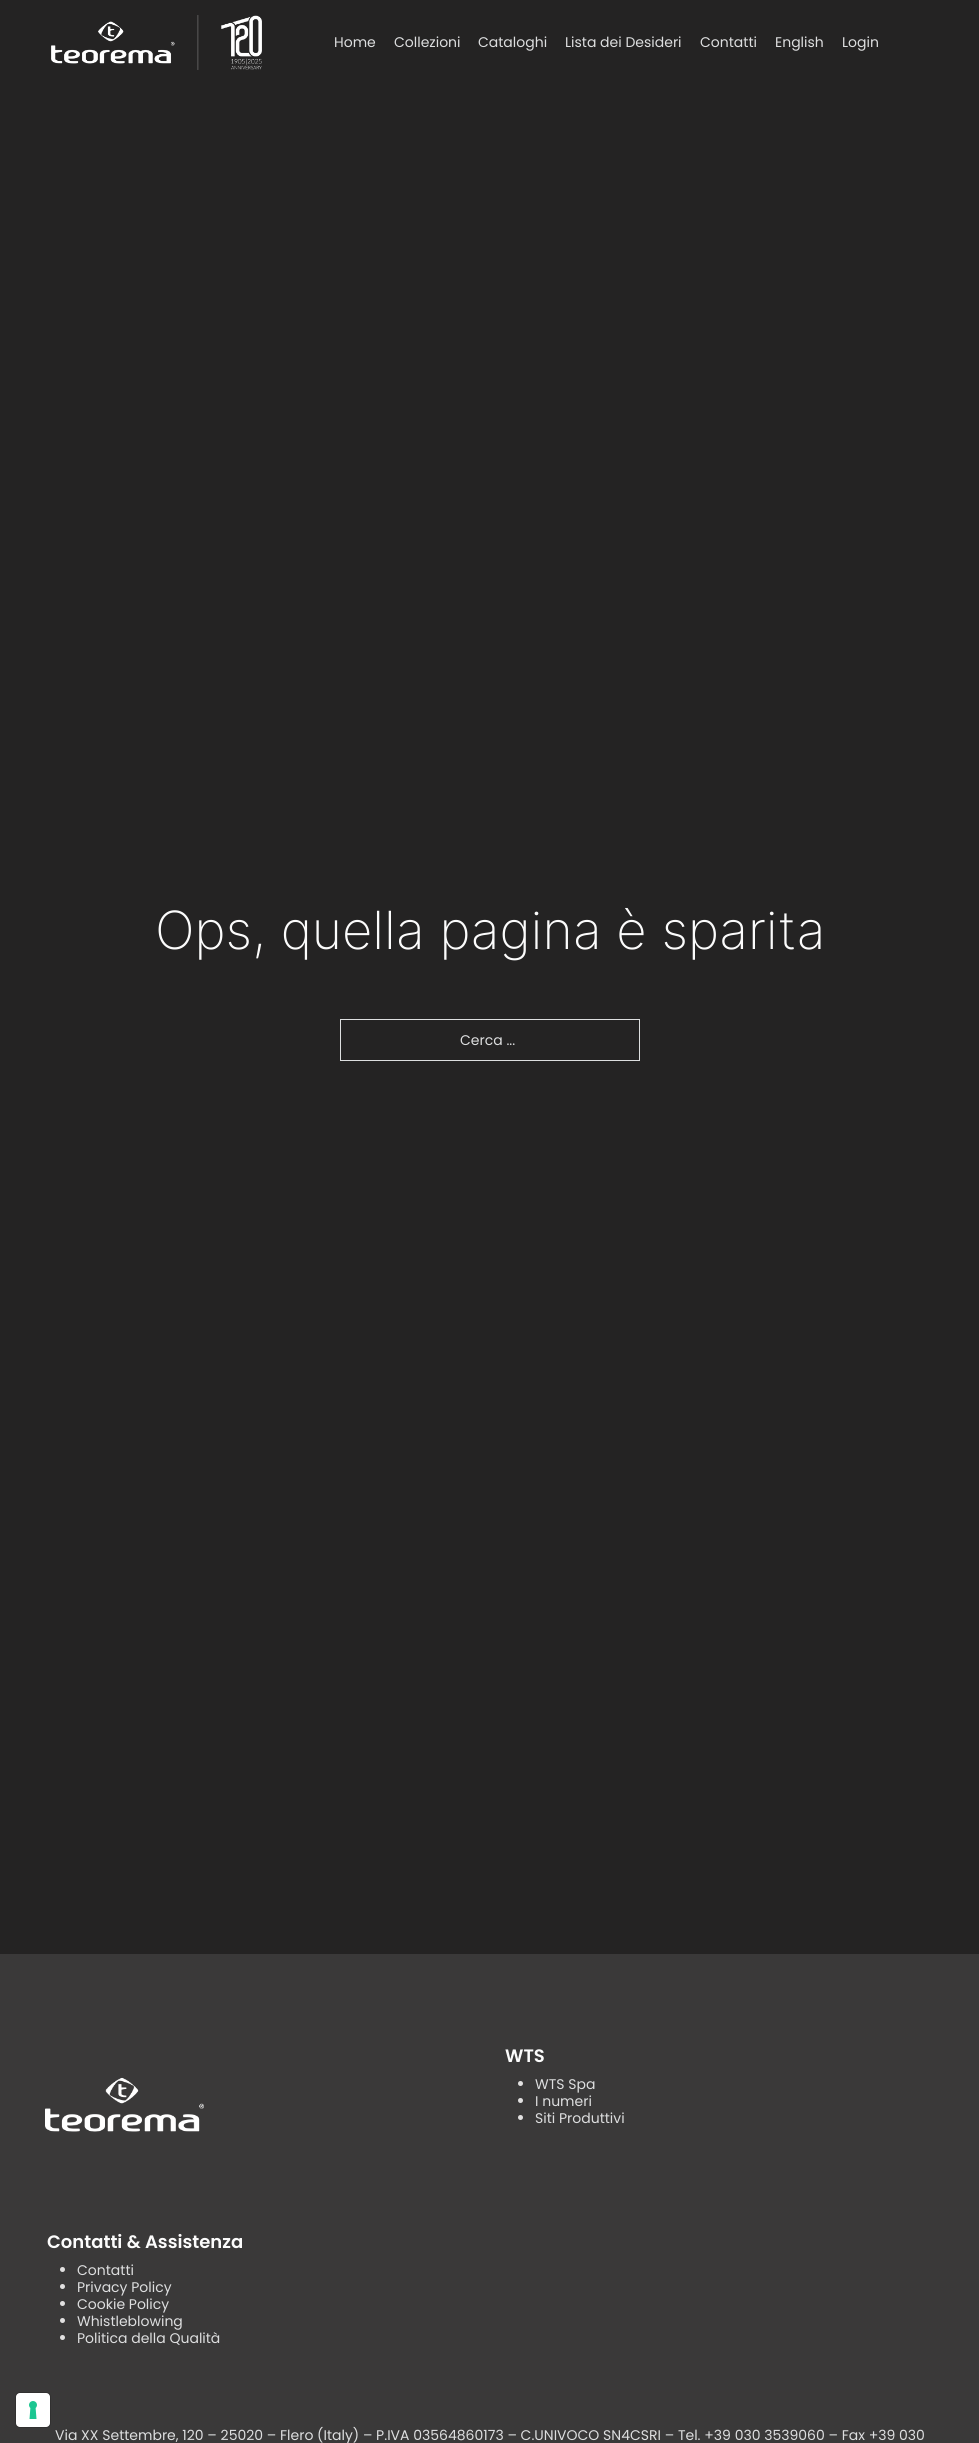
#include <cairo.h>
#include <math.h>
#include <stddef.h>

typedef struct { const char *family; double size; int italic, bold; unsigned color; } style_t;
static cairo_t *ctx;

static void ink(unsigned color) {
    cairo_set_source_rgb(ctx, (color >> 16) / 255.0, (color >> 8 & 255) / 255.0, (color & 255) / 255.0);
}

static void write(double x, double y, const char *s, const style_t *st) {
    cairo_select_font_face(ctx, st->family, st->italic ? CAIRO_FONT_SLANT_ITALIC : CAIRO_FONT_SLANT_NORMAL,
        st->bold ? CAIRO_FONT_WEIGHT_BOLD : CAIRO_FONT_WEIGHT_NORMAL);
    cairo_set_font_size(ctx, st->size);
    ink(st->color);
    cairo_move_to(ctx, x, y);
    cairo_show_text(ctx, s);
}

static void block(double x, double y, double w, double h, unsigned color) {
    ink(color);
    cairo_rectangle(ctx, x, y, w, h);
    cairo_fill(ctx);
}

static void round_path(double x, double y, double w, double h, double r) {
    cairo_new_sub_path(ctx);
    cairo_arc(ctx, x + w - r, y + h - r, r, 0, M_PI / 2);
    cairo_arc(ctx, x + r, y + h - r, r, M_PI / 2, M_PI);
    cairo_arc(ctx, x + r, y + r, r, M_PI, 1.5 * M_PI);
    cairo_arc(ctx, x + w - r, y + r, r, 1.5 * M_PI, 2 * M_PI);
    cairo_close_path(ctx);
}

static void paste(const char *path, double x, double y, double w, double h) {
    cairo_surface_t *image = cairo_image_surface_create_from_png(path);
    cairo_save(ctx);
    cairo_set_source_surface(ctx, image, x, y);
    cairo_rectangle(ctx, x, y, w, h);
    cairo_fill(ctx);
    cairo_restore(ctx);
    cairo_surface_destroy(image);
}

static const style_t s1 = {"Poppins", 14, 0, 0, 0xdddedf};
static const style_t s2 = {"Inter ExtraLight", 52.6, 0, 0, 0xfcfcfc};
static const style_t s3 = {"Poppins SemiBold", 18, 0, 0, 0xfcfcfc};

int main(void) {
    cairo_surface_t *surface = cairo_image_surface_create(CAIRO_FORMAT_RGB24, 979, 2443);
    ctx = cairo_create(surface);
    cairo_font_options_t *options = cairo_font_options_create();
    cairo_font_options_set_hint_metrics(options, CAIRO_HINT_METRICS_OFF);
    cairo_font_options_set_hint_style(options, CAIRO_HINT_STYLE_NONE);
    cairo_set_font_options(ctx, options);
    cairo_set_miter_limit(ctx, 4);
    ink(0x242323);
    cairo_paint(ctx);
    paste("pic1.png", 51, 15, 211, 55);
    write(334, 47, "Home", &s1);
    write(394, 47, "Collezioni", &s1);
    write(478, 47, "Cataloghi", &s1);
    write(565, 47, "Lista dei Desideri", &s1);
    write(700, 47, "Contatti", &s1);
    write(775, 47, "English", &s1);
    write(842, 47, "Login", &s1);
    write(155, 949, "Ops, quella pagina è sparita", &s2);
    cairo_rectangle(ctx, 340.5, 1019.5, 299, 41);
    ink(0xdddedf);
    cairo_set_line_width(ctx, 1);
    cairo_stroke(ctx);
    write(460, 1045, "Cerca ...", &s1);
    block(0, 1954, 979, 489, 0x3a3939);
    round_path(15.5, 2392.5, 35, 35, 4.5);
    ink(0x313030);
    cairo_stroke(ctx);
    ink(0xffffff);
    round_path(16, 2393, 34, 34, 4);
    cairo_fill(ctx);
    paste("pic2.png", 29, 2401, 8, 18);
    paste("pic3.png", 45, 2077, 159, 55);
    write(505, 2062, "WTS", &s3);
    ink(0xe1e0e0);
    cairo_new_path(ctx);
    cairo_arc(ctx, 520.5, 2083.5, 2.5, 0, 2 * M_PI);
    cairo_fill(ctx);
    write(535, 2089, "WTS Spa", &s1);
    ink(0xe1e0e0);
    cairo_new_path(ctx);
    cairo_arc(ctx, 520.5, 2100.5, 2.5, 0, 2 * M_PI);
    cairo_fill(ctx);
    write(535, 2106, "I numeri", &s1);
    ink(0xe1e0e0);
    cairo_new_path(ctx);
    cairo_arc(ctx, 520.5, 2117.5, 2.5, 0, 2 * M_PI);
    cairo_fill(ctx);
    write(535, 2123, "Siti Produttivi", &s1);
    write(47, 2248, "Contatti & Assistenza", &s3);
    ink(0xe1e0e0);
    cairo_new_path(ctx);
    cairo_arc(ctx, 62.5, 2269.5, 2.5, 0, 2 * M_PI);
    cairo_fill(ctx);
    write(77, 2275, "Contatti", &s1);
    ink(0xe1e0e0);
    cairo_new_path(ctx);
    cairo_arc(ctx, 62.5, 2286.5, 2.5, 0, 2 * M_PI);
    cairo_fill(ctx);
    write(77, 2292, "Privacy Policy", &s1);
    ink(0xe1e0e0);
    cairo_new_path(ctx);
    cairo_arc(ctx, 62.5, 2303.5, 2.5, 0, 2 * M_PI);
    cairo_fill(ctx);
    write(77, 2309, "Cookie Policy", &s1);
    ink(0xe1e0e0);
    cairo_new_path(ctx);
    cairo_arc(ctx, 62.5, 2320.5, 2.5, 0, 2 * M_PI);
    cairo_fill(ctx);
    write(77, 2326, "Whistleblowing", &s1);
    ink(0xe1e0e0);
    cairo_new_path(ctx);
    cairo_arc(ctx, 62.5, 2337.5, 2.5, 0, 2 * M_PI);
    cairo_fill(ctx);
    write(77, 2343, "Politica della Qualità", &s1);
    write(55, 2440, "Via XX Settembre, 120 – 25020 – Flero (Italy) – P.IVA 03564860173 – C.UNIVOCO SN4CSRI – Tel. +39 030 3539060 – Fax +39 030", &s1);
    cairo_surface_write_to_png(surface, "screenshot.png");
    cairo_font_options_destroy(options);
    cairo_destroy(ctx);
    cairo_surface_destroy(surface);
    return 0;
}
